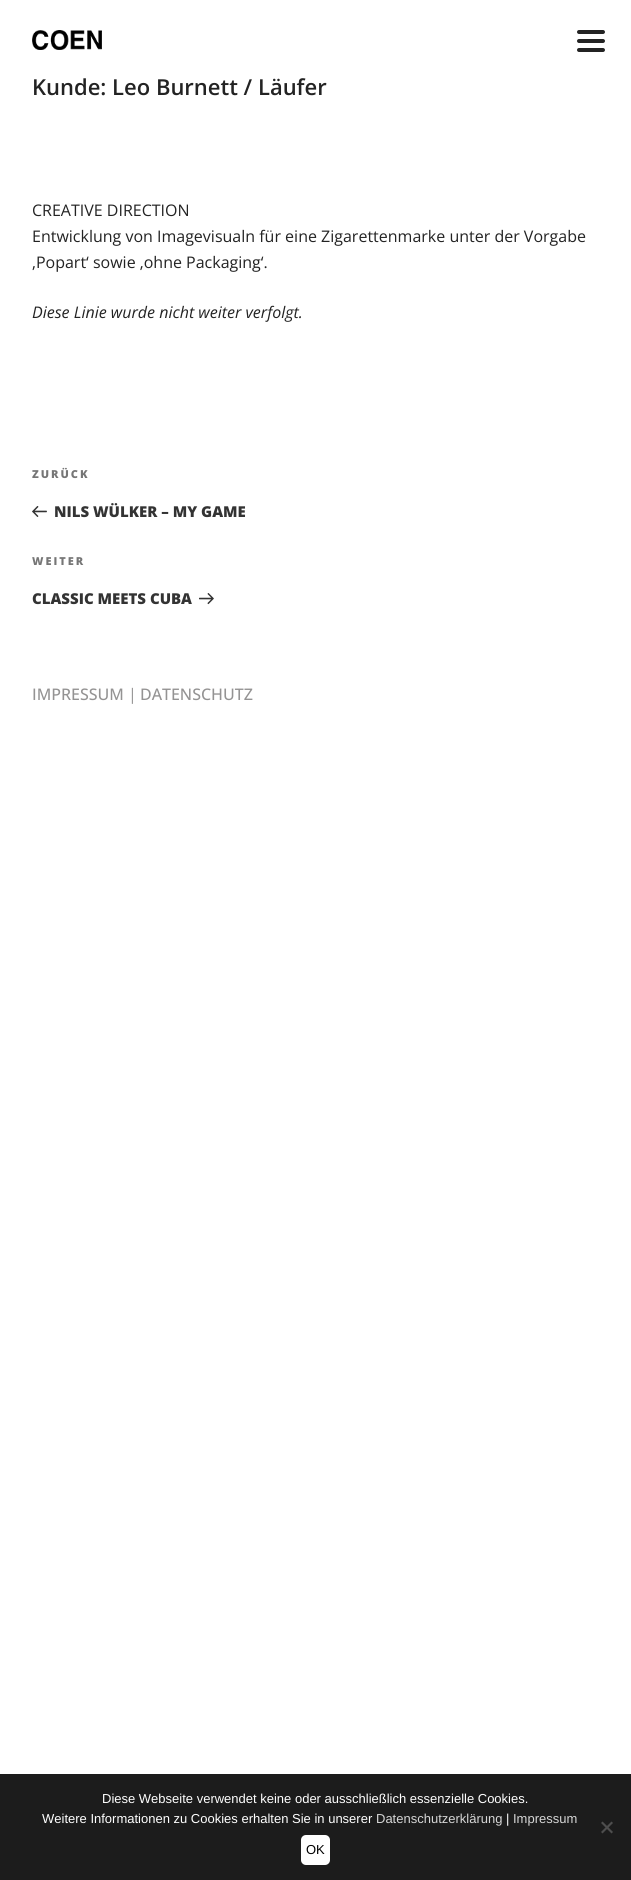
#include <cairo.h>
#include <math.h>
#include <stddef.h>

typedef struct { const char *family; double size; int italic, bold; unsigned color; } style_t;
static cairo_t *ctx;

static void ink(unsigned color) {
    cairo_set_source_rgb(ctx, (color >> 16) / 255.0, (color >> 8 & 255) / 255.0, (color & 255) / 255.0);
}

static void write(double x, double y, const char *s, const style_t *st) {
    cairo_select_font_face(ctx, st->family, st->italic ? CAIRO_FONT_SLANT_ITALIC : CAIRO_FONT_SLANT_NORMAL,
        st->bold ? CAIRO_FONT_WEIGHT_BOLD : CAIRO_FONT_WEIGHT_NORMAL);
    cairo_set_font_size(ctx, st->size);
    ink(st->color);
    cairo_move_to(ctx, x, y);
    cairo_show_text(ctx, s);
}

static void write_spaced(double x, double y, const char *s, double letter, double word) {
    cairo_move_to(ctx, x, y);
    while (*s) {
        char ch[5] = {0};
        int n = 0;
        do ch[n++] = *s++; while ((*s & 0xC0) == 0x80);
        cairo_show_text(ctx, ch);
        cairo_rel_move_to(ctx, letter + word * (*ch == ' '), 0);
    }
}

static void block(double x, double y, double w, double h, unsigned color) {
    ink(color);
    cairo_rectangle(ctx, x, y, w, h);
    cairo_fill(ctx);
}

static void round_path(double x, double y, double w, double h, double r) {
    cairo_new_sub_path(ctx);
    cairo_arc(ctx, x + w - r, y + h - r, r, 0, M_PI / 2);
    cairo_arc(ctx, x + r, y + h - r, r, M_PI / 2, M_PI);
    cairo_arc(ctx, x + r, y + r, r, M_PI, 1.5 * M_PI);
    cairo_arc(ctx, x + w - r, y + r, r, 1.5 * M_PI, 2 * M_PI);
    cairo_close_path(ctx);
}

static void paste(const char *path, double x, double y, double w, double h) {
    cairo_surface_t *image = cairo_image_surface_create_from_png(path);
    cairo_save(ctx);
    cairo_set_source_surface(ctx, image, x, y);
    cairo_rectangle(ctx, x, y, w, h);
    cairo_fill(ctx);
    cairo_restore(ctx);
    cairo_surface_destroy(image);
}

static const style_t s1 = {"Open Sans SemiBold", 22, 0, 0, 0x232323};
static const style_t s2 = {"Open Sans", 16, 0, 0, 0x232323};
static const style_t s3 = {"Open Sans", 16, 1, 0, 0x232323};
static const style_t s4 = {"Open Sans ExtraBold", 15, 0, 0, 0x333333};
static const style_t s5 = {"Open Sans Medium", 16, 0, 0, 0x949393};
static const style_t s6 = {"Open Sans", 16, 0, 0, 0x949393};
static const style_t s7 = {"Liberation Sans", 13, 0, 0, 0xffffff};
static const style_t s8 = {"Liberation Sans", 13, 0, 0, 0xd6d6d6};
static const style_t s9 = {"Liberation Sans", 13, 0, 0, 0x000000};

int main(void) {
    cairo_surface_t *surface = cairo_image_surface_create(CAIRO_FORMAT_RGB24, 631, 1880);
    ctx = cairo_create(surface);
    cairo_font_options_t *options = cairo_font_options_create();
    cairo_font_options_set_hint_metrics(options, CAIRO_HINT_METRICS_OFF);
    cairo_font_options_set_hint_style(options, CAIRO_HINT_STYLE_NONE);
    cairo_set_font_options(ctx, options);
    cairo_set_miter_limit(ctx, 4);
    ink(0xffffff);
    cairo_paint(ctx);
    ink(0x232323);
    round_path(577, 39, 28, 4, 2);
    cairo_fill(ctx);
    round_path(577, 30, 28, 4, 2);
    cairo_fill(ctx);
    round_path(577, 48, 28, 4, 2);
    cairo_fill(ctx);
    paste("pic1.png", 32, 30, 70, 20);
    write(32, 95, "Kunde: Leo Burnett / Läufer", &s1);
    write(32, 216, "CREATIVE DIRECTION", &s2);
    write(32, 242, "Entwicklung von Imagevisualn für eine Zigarettenmarke unter der Vorgabe", &s2);
    write(32, 268, "‚Popart‘ sowie ‚ohne Packaging‘.", &s2);
    write(32, 318, "Diese Linie wurde nicht weiter verfolgt.", &s3);
    cairo_select_font_face(ctx, "Open Sans ExtraBold", CAIRO_FONT_SLANT_NORMAL, CAIRO_FONT_WEIGHT_NORMAL);
    cairo_set_font_size(ctx, 11);
    ink(0x767676);
    write_spaced(32, 478, "ZURÜCK", 2, 0);
    paste("pic2.png", 32, 506, 15, 11);
    write(54, 517, "NILS WÜLKER – MY GAME", &s4);
    cairo_set_font_size(ctx, 11);
    ink(0x767676);
    write_spaced(32, 565, "WEITER", 2, 0);
    write(32, 604, "CLASSIC MEETS CUBA", &s4);
    paste("pic3.png", 199, 593, 15, 12);
    write(32, 700, "IMPRESSUM", &s5);
    write(128, 700, "|", &s6);
    write(140, 700, "DATENSCHUTZ", &s5);
    block(0, 1774, 631, 106, 0x1c1c1c);
    write(102, 1803, "Diese Webseite verwendet keine oder ausschließlich essenzielle Cookies.", &s7);
    write(42, 1823, "Weitere Informationen zu Cookies erhalten Sie in unserer", &s7);
    write(376, 1823, "Datenschutzerklärung", &s8);
    write(506, 1823, "|", &s7);
    write(513, 1823, "Impressum", &s8);
    ink(0x4e4e4e);
    cairo_new_path(ctx);
    cairo_move_to(ctx, 611.5, 1821.5);
    cairo_line_to(ctx, 613, 1823);
    cairo_line_to(ctx, 602.5, 1833.5);
    cairo_line_to(ctx, 601, 1832);
    cairo_close_path(ctx);
    cairo_fill(ctx);
    cairo_new_path(ctx);
    cairo_move_to(ctx, 601, 1823);
    cairo_line_to(ctx, 602.5, 1821.5);
    cairo_line_to(ctx, 613, 1832);
    cairo_line_to(ctx, 611.5, 1833.5);
    cairo_close_path(ctx);
    cairo_fill(ctx);
    ink(0xffffff);
    round_path(301, 1835, 29, 30, 5);
    cairo_fill(ctx);
    write(306, 1854, "OK", &s9);
    cairo_surface_write_to_png(surface, "screenshot.png");
    cairo_font_options_destroy(options);
    cairo_destroy(ctx);
    cairo_surface_destroy(surface);
    return 0;
}
